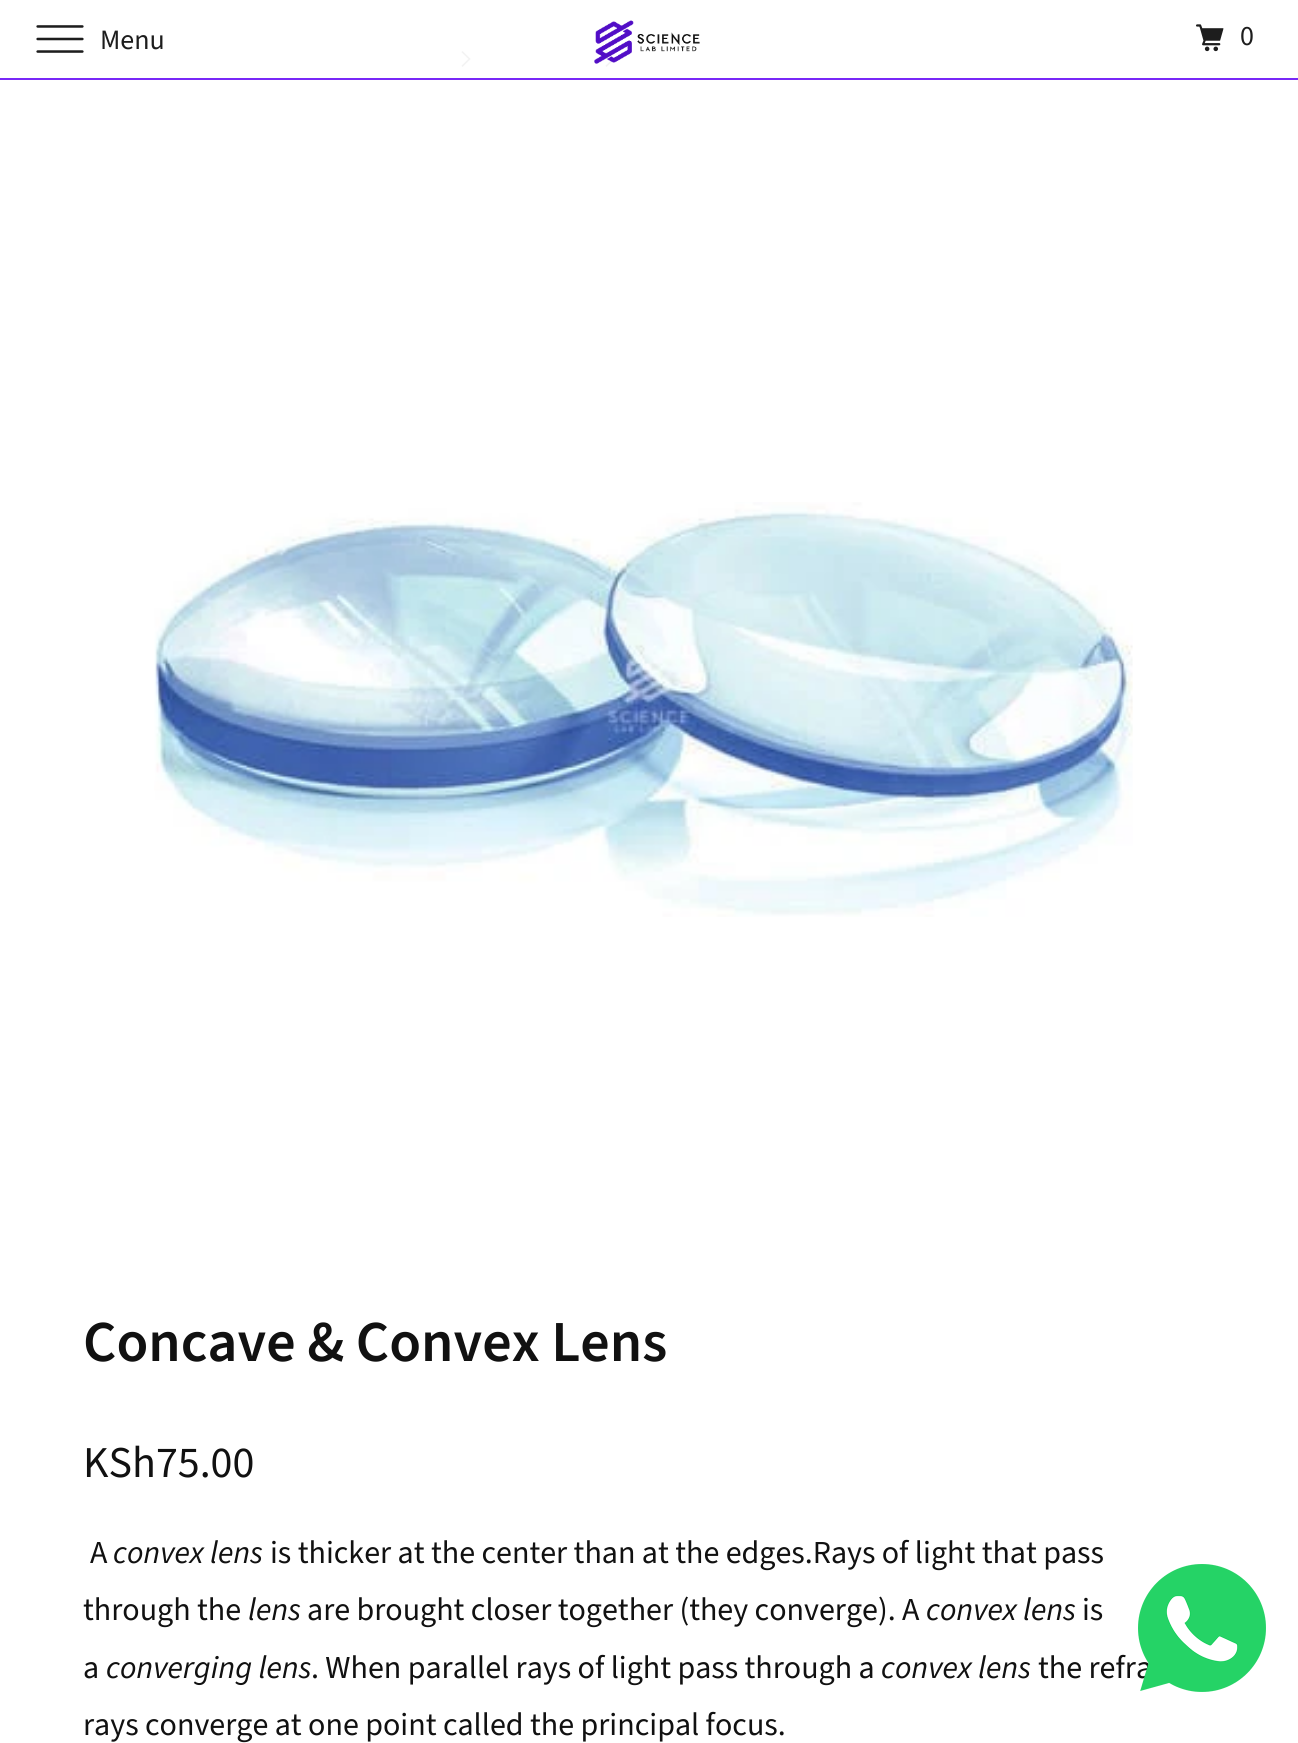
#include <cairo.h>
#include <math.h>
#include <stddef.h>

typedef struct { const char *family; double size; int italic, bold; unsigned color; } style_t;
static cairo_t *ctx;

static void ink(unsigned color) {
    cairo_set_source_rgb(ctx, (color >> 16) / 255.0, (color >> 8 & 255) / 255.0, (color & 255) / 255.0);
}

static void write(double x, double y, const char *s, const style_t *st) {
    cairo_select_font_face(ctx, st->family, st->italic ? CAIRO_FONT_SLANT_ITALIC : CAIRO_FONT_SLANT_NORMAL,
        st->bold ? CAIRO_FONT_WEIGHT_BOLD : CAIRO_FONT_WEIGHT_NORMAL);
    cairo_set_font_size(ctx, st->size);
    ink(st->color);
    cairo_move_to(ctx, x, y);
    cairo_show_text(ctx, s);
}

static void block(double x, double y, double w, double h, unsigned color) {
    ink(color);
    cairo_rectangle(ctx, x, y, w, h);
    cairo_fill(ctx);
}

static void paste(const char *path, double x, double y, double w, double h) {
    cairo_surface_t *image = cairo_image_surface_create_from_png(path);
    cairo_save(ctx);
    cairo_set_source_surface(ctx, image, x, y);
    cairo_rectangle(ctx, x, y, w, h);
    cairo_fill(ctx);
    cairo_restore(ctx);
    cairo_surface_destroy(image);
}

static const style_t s1 = {"Source Sans Pro", 28, 0, 0, 0x1d1d1d};
static const style_t s2 = {"Source Sans Pro SemiBold", 58, 0, 0, 0x111111};
static const style_t s3 = {"Source Sans Pro", 44, 0, 0, 0x111111};
static const style_t s4 = {"Source Sans Pro", 32, 0, 0, 0x111111};
static const style_t s5 = {"Source Sans Pro", 32, 1, 0, 0x111111};

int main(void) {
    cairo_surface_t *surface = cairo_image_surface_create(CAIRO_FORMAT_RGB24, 1298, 1743);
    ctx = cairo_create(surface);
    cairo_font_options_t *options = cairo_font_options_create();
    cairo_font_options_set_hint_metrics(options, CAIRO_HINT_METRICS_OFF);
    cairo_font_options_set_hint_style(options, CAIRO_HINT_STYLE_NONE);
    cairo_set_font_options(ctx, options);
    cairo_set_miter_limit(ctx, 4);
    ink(0xffffff);
    cairo_paint(ctx);
    block(0, 78, 1298, 2, 0x7928f7);
    paste("pic1.png", 36, 25, 48, 28);
    write(100, 49, "Menu", &s1);
    paste("pic4.png", 605, 51, 10, 16);
    paste("pic2.png", 594, 20, 106, 44);
    paste("pic3.png", 1196, 24, 28, 28);
    write(1240, 45, "0", &s1);
    paste("pic4.png", 461, 51, 10, 16);
    paste("pic5.png", 154, 502, 979, 415);
    write(83, 1361, "Concave & Convex Lens", &s2);
    write(83, 1477, "KSh75.00", &s3);
    write(90, 1563, "A", &s4);
    write(113, 1563, "convex lens", &s5);
    write(270, 1563, "is thicker at the center than at the edges.Rays of light that pass", &s4);
    write(83, 1620, "through the", &s4);
    write(248, 1620, "lens", &s5);
    write(307, 1620, "are brought closer together (they converge). A", &s4);
    write(926, 1620, "convex lens", &s5);
    write(1082, 1620, "is", &s4);
    write(83, 1678, "a", &s4);
    write(106, 1678, "converging lens", &s5);
    write(311, 1678, ". When parallel rays of light pass through a", &s4);
    write(881, 1678, "convex lens", &s5);
    write(1038, 1678, "the refra", &s4);
    write(83, 1735, "rays converge at one point called the principal focus.", &s4);
    paste("pic6.png", 1138, 1564, 128, 128);
    cairo_surface_write_to_png(surface, "screenshot.png");
    cairo_font_options_destroy(options);
    cairo_destroy(ctx);
    cairo_surface_destroy(surface);
    return 0;
}
